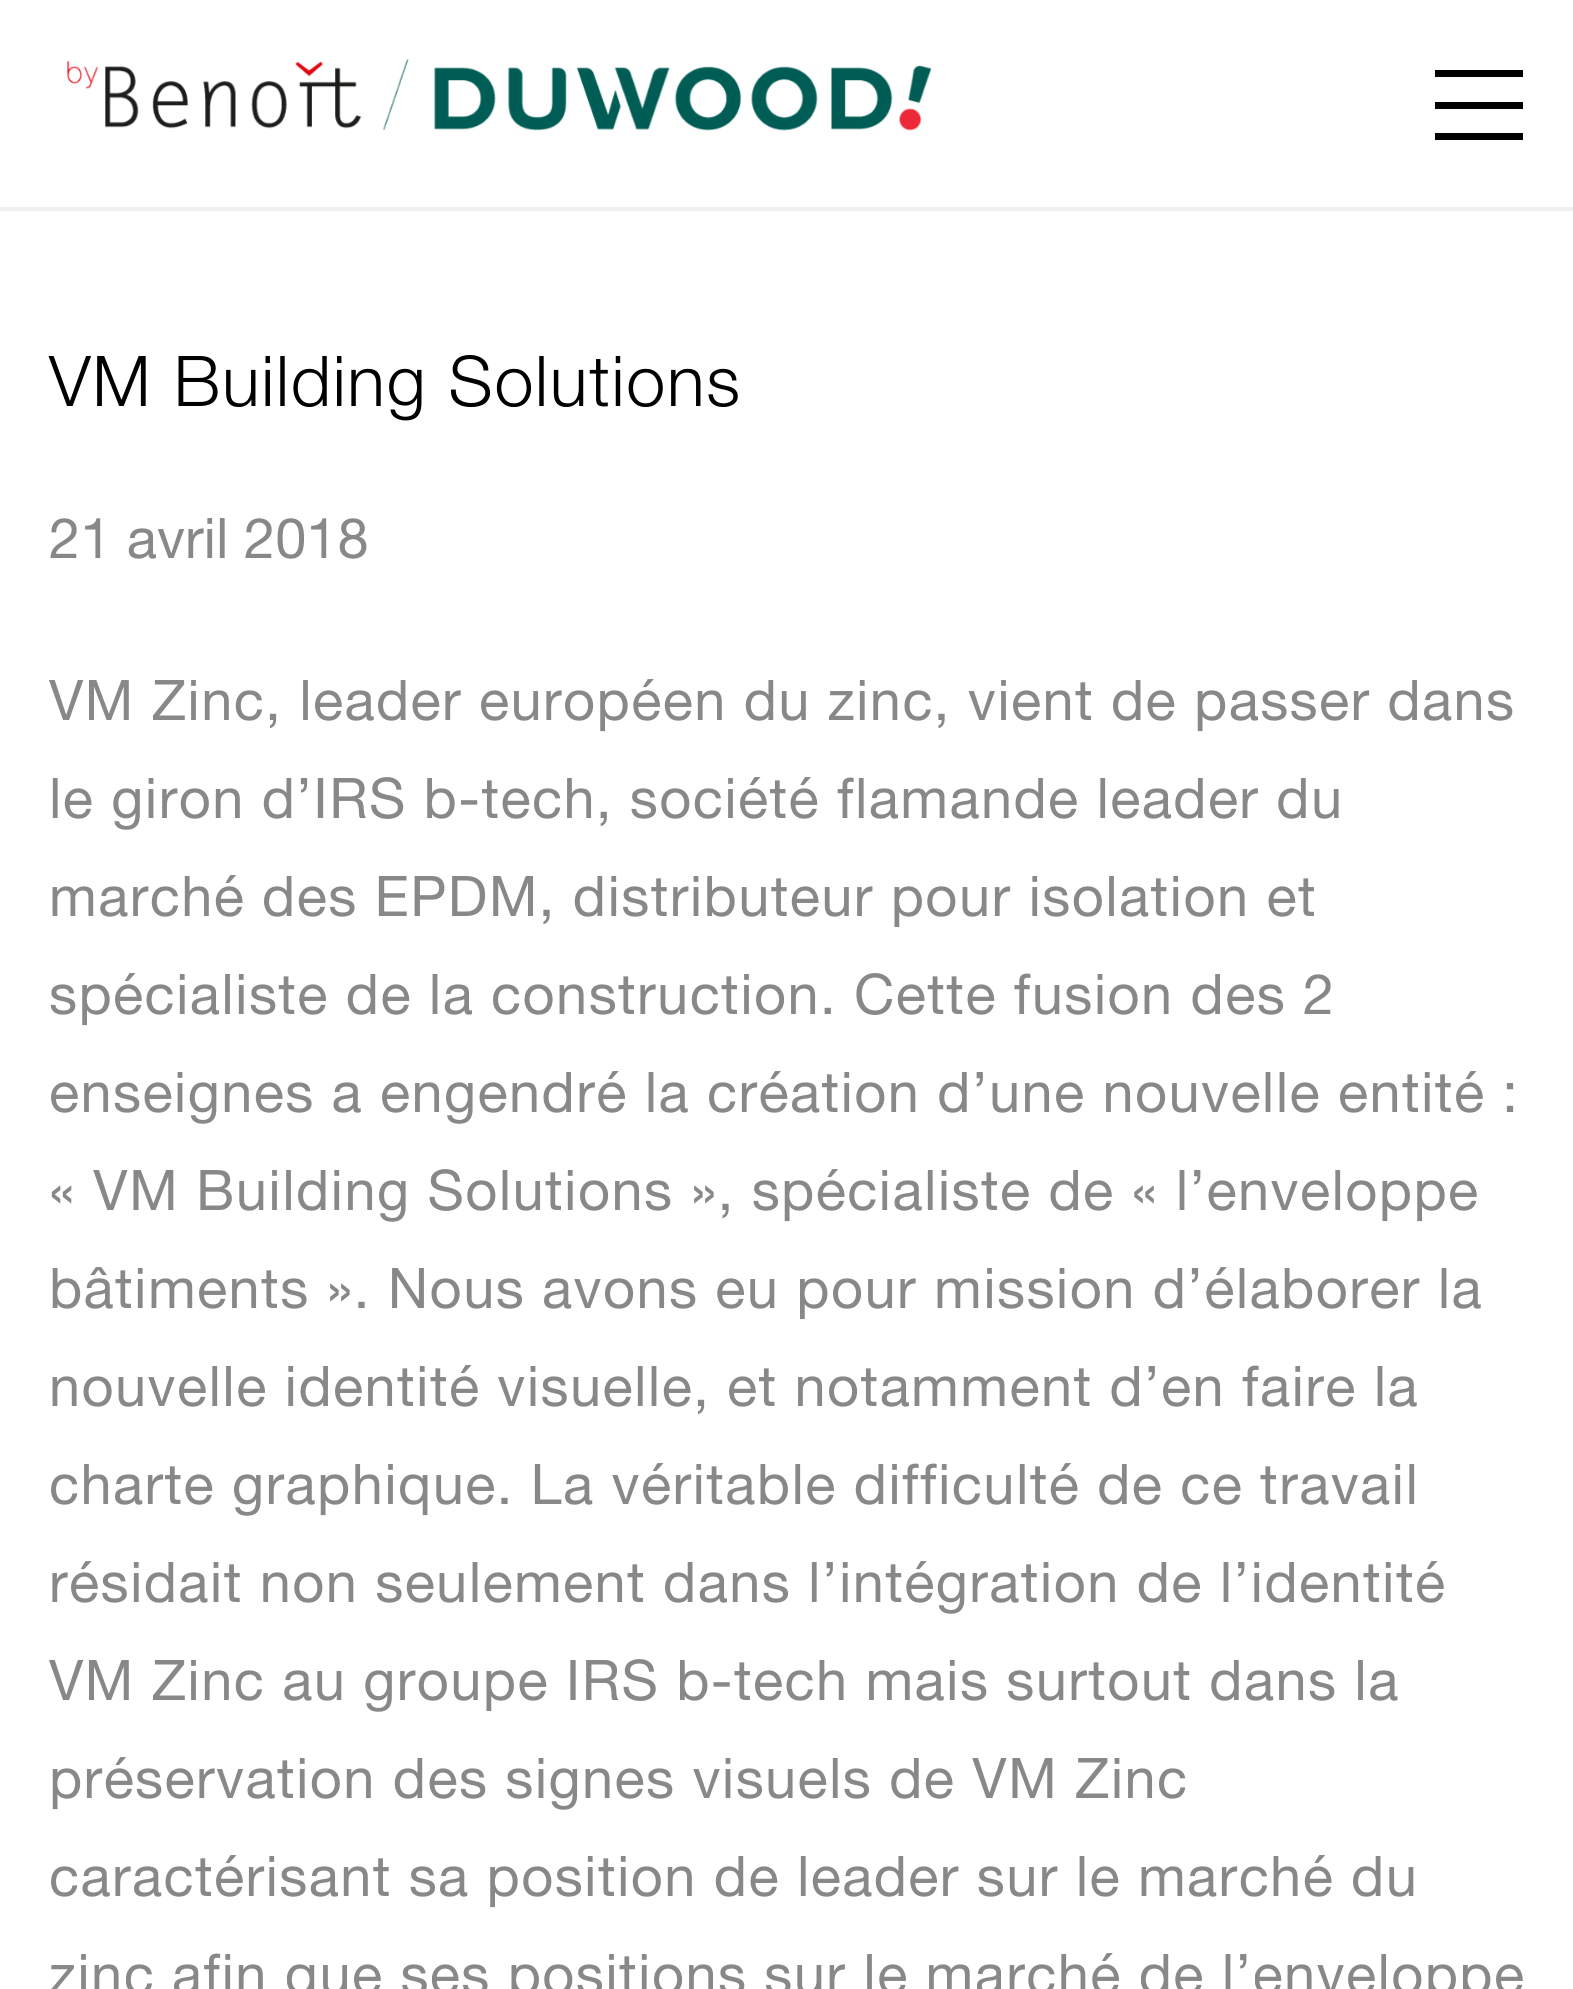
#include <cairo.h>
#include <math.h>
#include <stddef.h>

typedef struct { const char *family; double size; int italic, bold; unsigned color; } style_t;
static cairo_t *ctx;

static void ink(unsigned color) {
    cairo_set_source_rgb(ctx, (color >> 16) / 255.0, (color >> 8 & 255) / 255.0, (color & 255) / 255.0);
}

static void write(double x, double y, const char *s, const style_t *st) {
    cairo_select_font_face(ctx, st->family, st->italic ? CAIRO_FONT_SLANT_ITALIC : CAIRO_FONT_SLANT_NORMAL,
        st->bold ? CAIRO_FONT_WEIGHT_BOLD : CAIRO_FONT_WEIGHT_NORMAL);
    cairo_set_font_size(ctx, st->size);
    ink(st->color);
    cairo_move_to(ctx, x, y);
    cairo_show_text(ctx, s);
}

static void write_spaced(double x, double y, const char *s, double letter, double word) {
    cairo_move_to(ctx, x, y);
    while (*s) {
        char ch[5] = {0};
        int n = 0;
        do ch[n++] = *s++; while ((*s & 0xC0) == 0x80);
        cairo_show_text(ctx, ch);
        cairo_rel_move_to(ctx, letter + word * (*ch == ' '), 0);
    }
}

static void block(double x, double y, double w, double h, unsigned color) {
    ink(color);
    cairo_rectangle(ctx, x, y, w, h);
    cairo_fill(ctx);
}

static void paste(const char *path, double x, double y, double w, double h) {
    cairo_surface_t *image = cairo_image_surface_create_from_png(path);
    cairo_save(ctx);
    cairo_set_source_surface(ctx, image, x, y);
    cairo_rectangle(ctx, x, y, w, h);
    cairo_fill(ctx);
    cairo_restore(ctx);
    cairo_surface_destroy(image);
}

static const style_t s1 = {"Helvetica Neue", 56, 0, 0, 0x888888};

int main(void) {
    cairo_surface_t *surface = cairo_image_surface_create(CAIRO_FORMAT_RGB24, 1573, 1989);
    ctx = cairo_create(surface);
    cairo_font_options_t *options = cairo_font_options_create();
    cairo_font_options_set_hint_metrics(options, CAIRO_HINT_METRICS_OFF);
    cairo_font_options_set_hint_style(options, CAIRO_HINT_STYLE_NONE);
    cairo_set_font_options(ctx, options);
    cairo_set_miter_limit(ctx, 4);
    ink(0xffffff);
    cairo_paint(ctx);
    block(0, 207, 1573, 4, 0xf2f0ef);
    paste("pic1.png", 67, 59, 865, 72);
    block(1435, 70, 88, 7, 0x000000);
    block(1435, 102, 88, 7, 0x000000);
    block(1435, 133, 88, 7, 0x000000);
    cairo_select_font_face(ctx, "Helvetica Neue Light", CAIRO_FONT_SLANT_NORMAL, CAIRO_FONT_WEIGHT_NORMAL);
    cairo_set_font_size(ctx, 70);
    write_spaced(49, 406, "VM Building Solutions", 1.75, 0);
    write(49, 558, "21 avril 2018", &s1);
    write_spaced(49, 720, "VM Zinc, leader européen du zinc, vient de passer dans", 1.4, 0);
    write_spaced(49, 818, "le giron d’IRS b-tech, société flamande leader du", 1.4, 0);
    write_spaced(49, 916, "marché des EPDM, distributeur pour isolation et", 1.4, 0);
    write_spaced(49, 1014, "spécialiste de la construction. Cette fusion des 2", 1.4, 0);
    write_spaced(49, 1112, "enseignes a engendré la création d’une nouvelle entité :", 1.4, 0);
    write_spaced(49, 1210, "« VM Building Solutions », spécialiste de « l’enveloppe", 1.4, 0);
    write_spaced(49, 1308, "bâtiments ». Nous avons eu pour mission d’élaborer la", 1.4, 0);
    write_spaced(49, 1406, "nouvelle identité visuelle, et notamment d’en faire la", 1.4, 0);
    write_spaced(49, 1504, "charte graphique. La véritable difficulté de ce travail", 1.4, 0);
    write_spaced(49, 1602, "résidait non seulement dans l’intégration de l’identité", 1.4, 0);
    write_spaced(49, 1700, "VM Zinc au groupe IRS b-tech mais surtout dans la", 1.4, 0);
    write_spaced(49, 1798, "préservation des signes visuels de VM Zinc", 1.4, 0);
    write_spaced(49, 1896, "caractérisant sa position de leader sur le marché du", 1.4, 0);
    write_spaced(49, 1994, "zinc afin que ses positions sur le marché de l’enveloppe", 1.4, 0);
    cairo_surface_write_to_png(surface, "screenshot.png");
    cairo_font_options_destroy(options);
    cairo_destroy(ctx);
    cairo_surface_destroy(surface);
    return 0;
}
